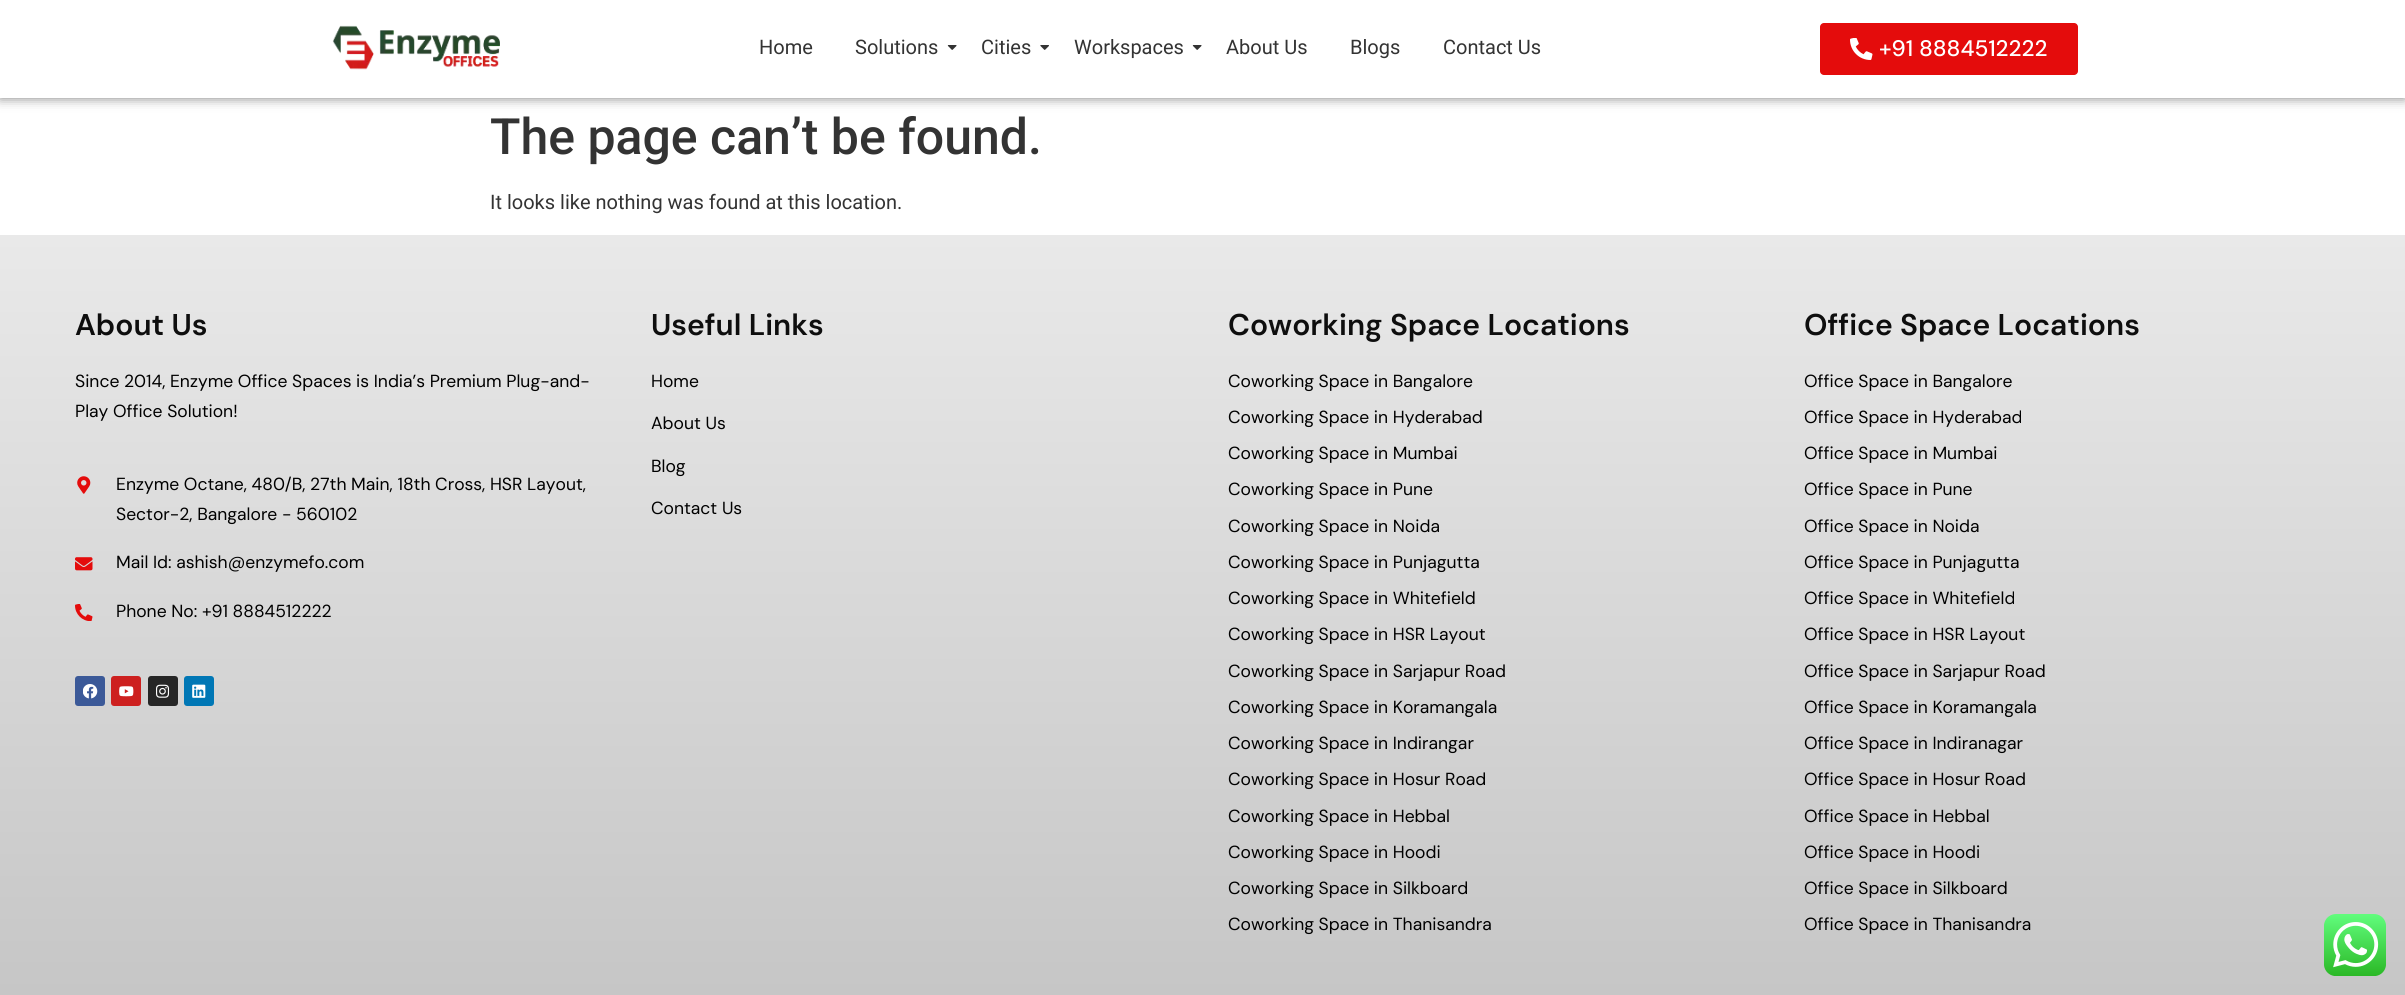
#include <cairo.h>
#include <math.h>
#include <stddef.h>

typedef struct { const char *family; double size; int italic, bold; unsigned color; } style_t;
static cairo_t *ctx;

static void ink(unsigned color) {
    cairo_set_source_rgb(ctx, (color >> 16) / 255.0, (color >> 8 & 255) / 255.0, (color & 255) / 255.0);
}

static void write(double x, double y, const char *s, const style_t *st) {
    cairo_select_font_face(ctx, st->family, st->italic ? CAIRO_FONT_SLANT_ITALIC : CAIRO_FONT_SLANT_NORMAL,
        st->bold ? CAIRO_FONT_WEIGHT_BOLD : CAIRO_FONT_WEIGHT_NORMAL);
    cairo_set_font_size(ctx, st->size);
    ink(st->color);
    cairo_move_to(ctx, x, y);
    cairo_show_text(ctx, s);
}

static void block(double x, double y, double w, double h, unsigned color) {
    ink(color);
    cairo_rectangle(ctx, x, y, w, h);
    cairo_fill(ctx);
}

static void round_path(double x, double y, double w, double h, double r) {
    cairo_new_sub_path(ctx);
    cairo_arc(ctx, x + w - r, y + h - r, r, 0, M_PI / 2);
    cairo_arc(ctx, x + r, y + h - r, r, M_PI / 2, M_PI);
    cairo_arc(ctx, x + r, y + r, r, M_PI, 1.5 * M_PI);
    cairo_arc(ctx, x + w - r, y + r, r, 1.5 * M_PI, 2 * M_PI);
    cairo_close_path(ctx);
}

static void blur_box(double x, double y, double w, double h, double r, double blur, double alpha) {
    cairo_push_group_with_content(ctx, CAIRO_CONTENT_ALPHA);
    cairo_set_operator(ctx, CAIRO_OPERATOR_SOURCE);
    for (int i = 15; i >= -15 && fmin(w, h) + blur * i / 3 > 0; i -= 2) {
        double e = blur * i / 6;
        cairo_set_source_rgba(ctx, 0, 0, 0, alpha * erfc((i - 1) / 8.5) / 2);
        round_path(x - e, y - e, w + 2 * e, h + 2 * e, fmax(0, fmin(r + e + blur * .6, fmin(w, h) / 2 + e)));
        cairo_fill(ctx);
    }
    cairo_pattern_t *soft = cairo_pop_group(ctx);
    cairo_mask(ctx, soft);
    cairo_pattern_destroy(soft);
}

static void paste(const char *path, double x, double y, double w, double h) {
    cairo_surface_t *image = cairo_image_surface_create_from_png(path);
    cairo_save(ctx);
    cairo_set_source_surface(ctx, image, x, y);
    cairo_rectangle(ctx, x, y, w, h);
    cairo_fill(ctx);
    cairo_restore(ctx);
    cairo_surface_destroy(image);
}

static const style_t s1 = {"Roboto", 20, 0, 0, 0x333333};
static const style_t s2 = {"DM Sans Medium", 22.5, 0, 0, 0xffffff};
static const style_t s3 = {"Roboto Medium", 50, 0, 0, 0x333333};
static const style_t s4 = {"DM Sans SemiBold", 30, 0, 0, 0x0e0e0e};
static const style_t s5 = {"DM Sans", 17.5, 0, 0, 0x000000};

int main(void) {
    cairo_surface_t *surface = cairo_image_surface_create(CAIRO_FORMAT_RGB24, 2405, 995);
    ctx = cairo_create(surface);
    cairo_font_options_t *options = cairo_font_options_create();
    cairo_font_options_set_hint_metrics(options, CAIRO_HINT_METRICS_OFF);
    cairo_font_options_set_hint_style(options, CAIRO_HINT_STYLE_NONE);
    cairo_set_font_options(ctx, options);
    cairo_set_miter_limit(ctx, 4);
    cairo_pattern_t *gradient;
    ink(0xffffff);
    cairo_paint(ctx);
    ink(0x000000);
    blur_box(0, 0, 2405, 98, 0, 6, 0.5);
    block(0, 0, 2405, 98, 0xffffff);
    paste("pic1.png", 332, 25, 168, 45);
    write(759, 54, "Home", &s1);
    write(855, 54, "Solutions", &s1);
    paste("pic2.png", 947, 45, 10, 5);
    write(981, 54, "Cities", &s1);
    paste("pic3.png", 1040, 45, 9, 5);
    write(1074, 54, "Workspaces", &s1);
    paste("pic2.png", 1192, 45, 10, 5);
    write(1226, 54, "About Us", &s1);
    write(1350, 54, "Blogs", &s1);
    write(1443, 54, "Contact Us", &s1);
    ink(0xe40c0c);
    round_path(1820, 23, 258, 52, 4);
    cairo_fill(ctx);
    paste("pic4.png", 1850, 38, 23, 22);
    write(1879, 56, "+91 8884512222", &s2);
    write(490, 154, "The page can’t be found.", &s3);
    write(490, 209, "It looks like nothing was found at this location.", &s1);
    gradient = cairo_pattern_create_linear(1203, 235, 1203, 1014);
    cairo_pattern_add_color_stop_rgba(gradient, 0, 0.914, 0.914, 0.914, 1);
    cairo_pattern_add_color_stop_rgba(gradient, 1, 0.773, 0.773, 0.773, 1);
    cairo_set_source(ctx, gradient);
    cairo_pattern_destroy(gradient);
    cairo_rectangle(ctx, 0, 235, 2405, 760);
    cairo_fill(ctx);
    write(75, 335, "About Us", &s4);
    write(75, 387, "Since 2014, Enzyme Office Spaces is India’s Premium Plug-and-", &s5);
    write(75, 417, "Play Office Solution!", &s5);
    paste("pic5.png", 77, 476, 14, 18);
    write(116, 490, "Enzyme Octane, 480/B, 27th Main, 18th Cross, HSR Layout,", &s5);
    write(116, 520, "Sector-2, Bangalore - 560102", &s5);
    paste("pic6.png", 75, 557, 18, 14);
    write(116, 568, "Mail Id: ashish@enzymefo.com", &s5);
    paste("pic7.png", 75, 604, 18, 17);
    write(116, 617, "Phone No: +91 8884512222", &s5);
    ink(0x3b5998);
    round_path(75, 676, 30, 30, 3);
    cairo_fill(ctx);
    paste("pic8.png", 83, 684, 15, 15);
    ink(0xcd201f);
    round_path(111, 676, 30, 30, 3);
    cairo_fill(ctx);
    paste("pic9.png", 119, 686, 15, 11);
    ink(0x262626);
    round_path(148, 676, 30, 30, 3);
    cairo_fill(ctx);
    paste("pic10.png", 156, 684, 14, 14);
    ink(0x0077b5);
    round_path(184, 676, 30, 30, 3);
    cairo_fill(ctx);
    paste("pic11.png", 192, 684, 14, 14);
    write(651, 335, "Useful Links", &s4);
    write(651, 387, "Home", &s5);
    write(651, 429, "About Us", &s5);
    write(651, 472, "Blog", &s5);
    write(651, 514, "Contact Us", &s5);
    write(1228, 335, "Coworking Space Locations", &s4);
    write(1228, 387, "Coworking Space in Bangalore", &s5);
    write(1228, 423, "Coworking Space in Hyderabad", &s5);
    write(1228, 459, "Coworking Space in Mumbai", &s5);
    write(1228, 495, "Coworking Space in Pune", &s5);
    write(1228, 532, "Coworking Space in Noida", &s5);
    write(1228, 568, "Coworking Space in Punjagutta", &s5);
    write(1228, 604, "Coworking Space in Whitefield", &s5);
    write(1228, 640, "Coworking Space in HSR Layout", &s5);
    write(1228, 677, "Coworking Space in Sarjapur Road", &s5);
    write(1228, 713, "Coworking Space in Koramangala", &s5);
    write(1228, 749, "Coworking Space in Indirangar", &s5);
    write(1228, 785, "Coworking Space in Hosur Road", &s5);
    write(1228, 822, "Coworking Space in Hebbal", &s5);
    write(1228, 858, "Coworking Space in Hoodi", &s5);
    write(1228, 894, "Coworking Space in Silkboard", &s5);
    write(1228, 930, "Coworking Space in Thanisandra", &s5);
    write(1804, 335, "Office Space Locations", &s4);
    write(1804, 387, "Office Space in Bangalore", &s5);
    write(1804, 423, "Office Space in Hyderabad", &s5);
    write(1804, 459, "Office Space in Mumbai", &s5);
    write(1804, 495, "Office Space in Pune", &s5);
    write(1804, 532, "Office Space in Noida", &s5);
    write(1804, 568, "Office Space in Punjagutta", &s5);
    write(1804, 604, "Office Space in Whitefield", &s5);
    write(1804, 640, "Office Space in HSR Layout", &s5);
    write(1804, 677, "Office Space in Sarjapur Road", &s5);
    write(1804, 713, "Office Space in Koramangala", &s5);
    write(1804, 749, "Office Space in Indiranagar", &s5);
    write(1804, 785, "Office Space in Hosur Road", &s5);
    write(1804, 822, "Office Space in Hebbal", &s5);
    write(1804, 858, "Office Space in Hoodi", &s5);
    write(1804, 894, "Office Space in Silkboard", &s5);
    write(1804, 930, "Office Space in Thanisandra", &s5);
    paste("pic12.png", 2324, 914, 62, 62);
    cairo_surface_write_to_png(surface, "screenshot.png");
    cairo_font_options_destroy(options);
    cairo_destroy(ctx);
    cairo_surface_destroy(surface);
    return 0;
}
